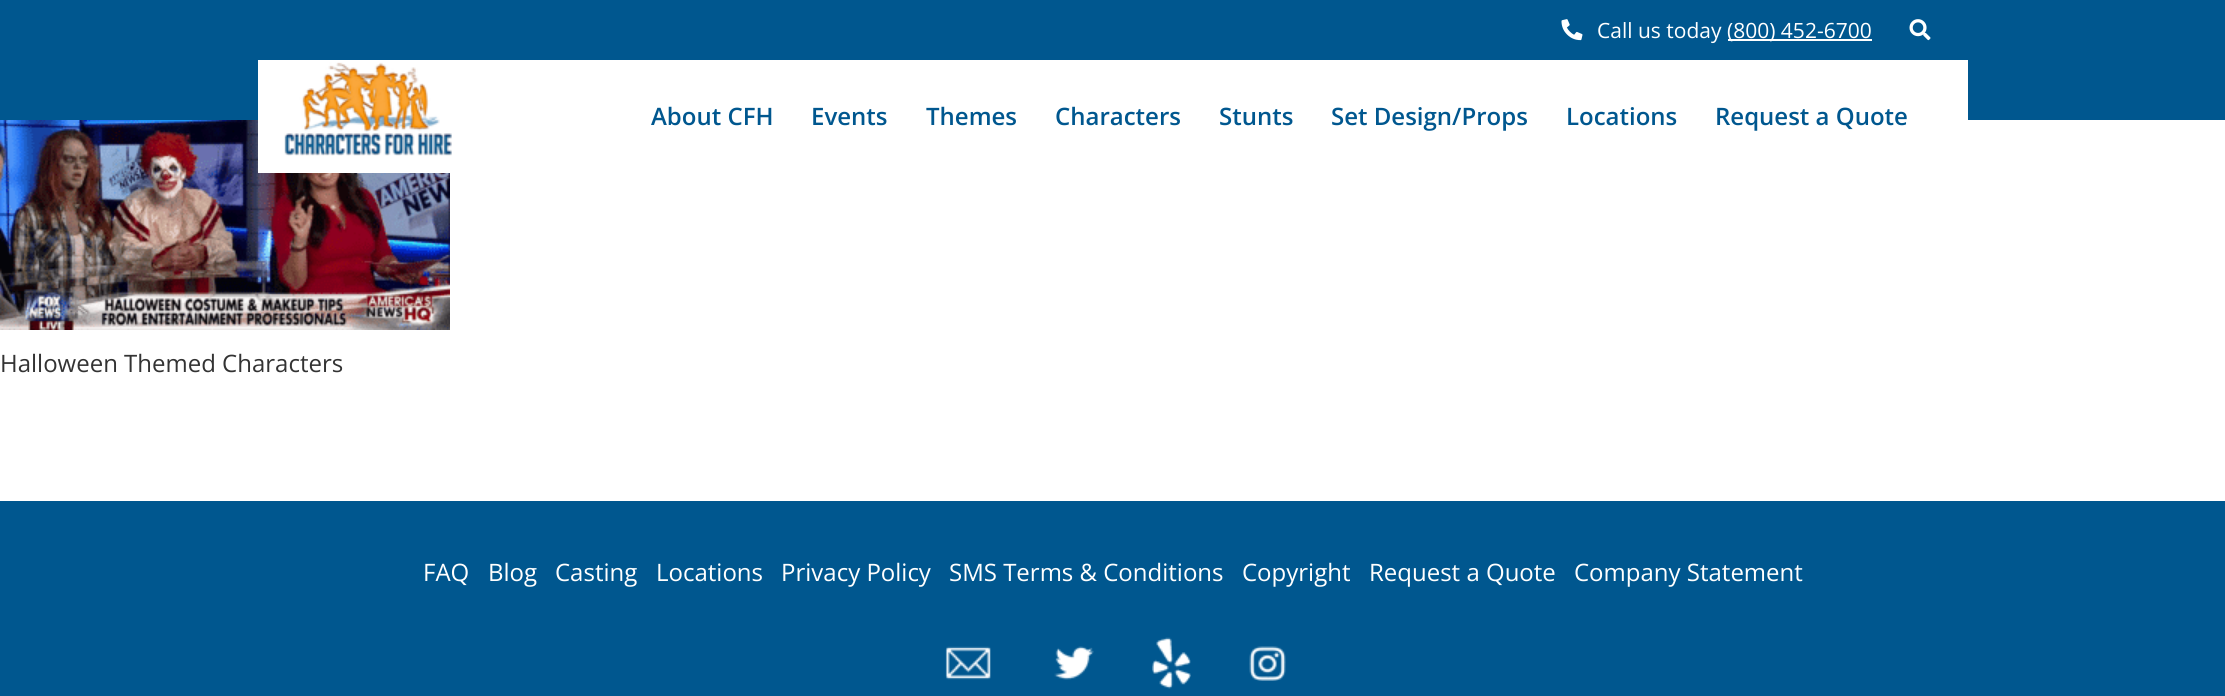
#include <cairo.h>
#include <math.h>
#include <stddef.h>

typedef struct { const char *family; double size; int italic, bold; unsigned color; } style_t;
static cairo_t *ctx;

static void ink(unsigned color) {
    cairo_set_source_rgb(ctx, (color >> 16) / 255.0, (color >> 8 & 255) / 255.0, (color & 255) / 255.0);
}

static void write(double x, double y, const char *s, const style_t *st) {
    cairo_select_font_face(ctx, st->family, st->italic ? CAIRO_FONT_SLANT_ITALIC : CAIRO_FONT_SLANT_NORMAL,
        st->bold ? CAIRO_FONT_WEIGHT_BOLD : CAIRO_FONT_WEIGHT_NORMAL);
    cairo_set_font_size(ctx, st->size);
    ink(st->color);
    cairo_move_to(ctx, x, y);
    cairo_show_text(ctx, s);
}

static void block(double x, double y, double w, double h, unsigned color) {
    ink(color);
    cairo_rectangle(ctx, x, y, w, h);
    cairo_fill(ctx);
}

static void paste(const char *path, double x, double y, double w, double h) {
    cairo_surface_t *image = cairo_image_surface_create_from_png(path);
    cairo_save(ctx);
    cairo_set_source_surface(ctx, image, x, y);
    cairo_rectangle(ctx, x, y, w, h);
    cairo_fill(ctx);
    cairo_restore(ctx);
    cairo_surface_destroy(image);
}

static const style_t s1 = {"Open Sans", 21, 0, 0, 0xffffff};
static const style_t s2 = {"Open Sans SemiBold", 24, 0, 0, 0x00578f};
static const style_t s3 = {"Open Sans", 24, 0, 0, 0x333333};
static const style_t s4 = {"Open Sans", 24, 0, 0, 0xffffff};

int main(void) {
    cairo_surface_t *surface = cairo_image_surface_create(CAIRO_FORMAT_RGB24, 2225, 696);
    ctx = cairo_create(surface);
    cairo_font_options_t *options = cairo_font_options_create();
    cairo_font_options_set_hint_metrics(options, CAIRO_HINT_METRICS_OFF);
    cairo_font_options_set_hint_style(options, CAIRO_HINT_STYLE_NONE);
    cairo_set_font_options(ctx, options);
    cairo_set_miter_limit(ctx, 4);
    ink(0xffffff);
    cairo_paint(ctx);
    block(0, 0, 2225, 120, 0x00578f);
    paste("pic1.png", 1561, 19, 22, 22);
    write(1597, 38, "Call us today", &s1);
    block(1728, 39, 144, 2, 0xffffff);
    write(1727, 38, "(800) 452-6700", &s1);
    paste("pic2.png", 1909, 19, 22, 22);
    paste("pic4.png", 0, 120, 450, 210);
    block(258, 60, 1710, 113, 0xffffff);
    paste("pic3.png", 284, 62, 168, 94);
    write(651, 125, "About CFH", &s2);
    write(811, 125, "Events", &s2);
    write(926, 125, "Themes", &s2);
    write(1055, 125, "Characters", &s2);
    write(1219, 125, "Stunts", &s2);
    write(1331, 125, "Set Design/Props", &s2);
    write(1566, 125, "Locations", &s2);
    write(1715, 125, "Request a Quote", &s2);
    write(0, 372, "Halloween Themed Characters", &s3);
    block(0, 501, 2225, 195, 0x00578f);
    write(423, 581, "FAQ", &s4);
    write(488, 581, "Blog", &s4);
    write(555, 581, "Casting", &s4);
    write(656, 581, "Locations", &s4);
    write(781, 581, "Privacy Policy", &s4);
    write(949, 581, "SMS Terms & Conditions", &s4);
    write(1242, 581, "Copyright", &s4);
    write(1369, 581, "Request a Quote", &s4);
    write(1574, 581, "Company Statement", &s4);
    paste("pic5.png", 945, 646, 46, 34);
    paste("pic6.png", 1054, 646, 40, 34);
    paste("pic7.png", 1152, 637, 39, 52);
    paste("pic8.png", 1249, 646, 37, 35);
    cairo_surface_write_to_png(surface, "screenshot.png");
    cairo_font_options_destroy(options);
    cairo_destroy(ctx);
    cairo_surface_destroy(surface);
    return 0;
}
